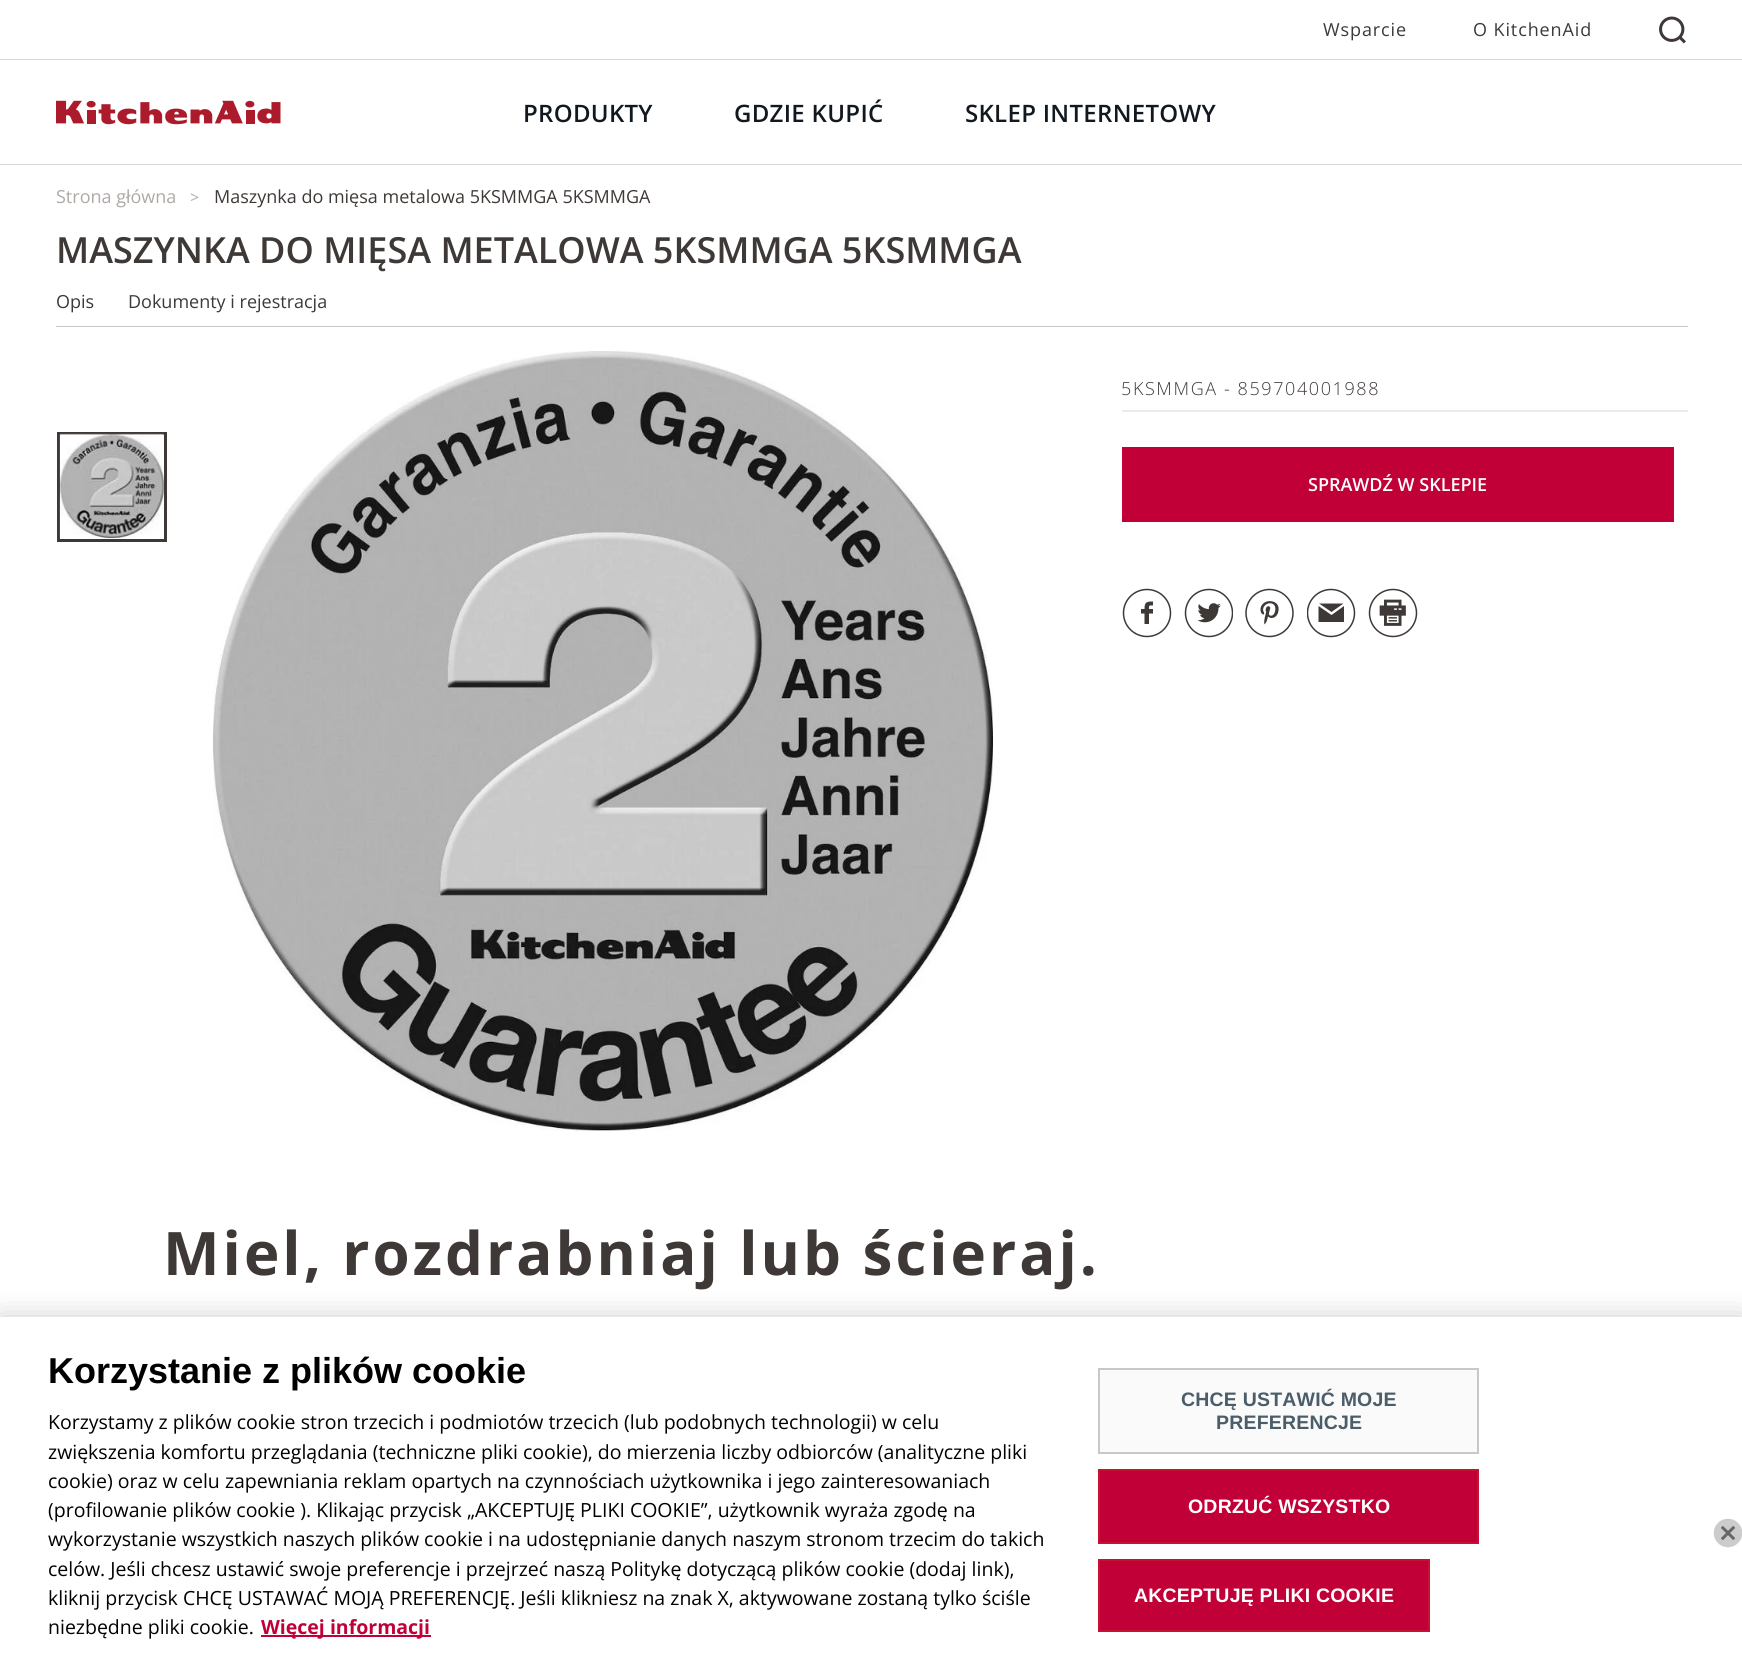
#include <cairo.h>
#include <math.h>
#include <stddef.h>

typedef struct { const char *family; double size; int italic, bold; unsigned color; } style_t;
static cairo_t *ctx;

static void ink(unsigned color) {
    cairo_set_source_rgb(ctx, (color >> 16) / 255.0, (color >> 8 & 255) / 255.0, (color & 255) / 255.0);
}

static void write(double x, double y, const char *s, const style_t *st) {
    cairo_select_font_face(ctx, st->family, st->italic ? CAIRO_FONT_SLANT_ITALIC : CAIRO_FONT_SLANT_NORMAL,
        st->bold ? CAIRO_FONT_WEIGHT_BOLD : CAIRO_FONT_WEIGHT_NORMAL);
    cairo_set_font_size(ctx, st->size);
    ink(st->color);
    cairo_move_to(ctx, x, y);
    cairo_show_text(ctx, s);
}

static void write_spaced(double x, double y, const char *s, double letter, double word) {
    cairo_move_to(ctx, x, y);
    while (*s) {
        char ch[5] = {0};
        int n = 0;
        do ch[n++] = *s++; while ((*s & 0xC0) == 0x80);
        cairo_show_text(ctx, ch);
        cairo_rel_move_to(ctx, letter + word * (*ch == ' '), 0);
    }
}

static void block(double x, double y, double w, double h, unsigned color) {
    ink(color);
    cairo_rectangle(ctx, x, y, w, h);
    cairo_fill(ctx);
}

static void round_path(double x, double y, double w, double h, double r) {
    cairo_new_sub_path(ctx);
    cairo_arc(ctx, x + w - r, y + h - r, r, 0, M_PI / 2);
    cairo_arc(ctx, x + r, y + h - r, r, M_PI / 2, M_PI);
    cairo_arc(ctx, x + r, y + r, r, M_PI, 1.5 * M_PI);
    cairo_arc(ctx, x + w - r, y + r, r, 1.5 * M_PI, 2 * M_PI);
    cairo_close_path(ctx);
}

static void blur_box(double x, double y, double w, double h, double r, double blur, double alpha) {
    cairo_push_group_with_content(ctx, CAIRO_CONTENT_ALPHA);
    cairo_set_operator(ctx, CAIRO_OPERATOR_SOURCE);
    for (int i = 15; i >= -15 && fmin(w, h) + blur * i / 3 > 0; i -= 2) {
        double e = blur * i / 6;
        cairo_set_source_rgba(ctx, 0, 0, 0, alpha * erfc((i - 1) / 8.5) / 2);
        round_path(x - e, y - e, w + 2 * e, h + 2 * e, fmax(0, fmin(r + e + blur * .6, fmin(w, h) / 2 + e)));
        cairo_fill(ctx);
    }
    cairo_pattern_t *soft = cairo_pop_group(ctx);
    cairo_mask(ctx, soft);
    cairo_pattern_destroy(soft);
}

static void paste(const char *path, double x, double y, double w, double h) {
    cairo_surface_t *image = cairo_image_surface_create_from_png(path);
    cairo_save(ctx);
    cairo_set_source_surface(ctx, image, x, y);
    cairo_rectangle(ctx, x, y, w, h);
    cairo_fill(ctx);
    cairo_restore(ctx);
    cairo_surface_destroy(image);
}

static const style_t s1 = {"Open Sans", 18, 0, 0, 0xaea9a6};
static const style_t s2 = {"Open Sans", 16, 0, 0, 0xaea9a6};
static const style_t s3 = {"Open Sans", 18, 0, 0, 0x3e3936};
static const style_t s4 = {"Open Sans SemiBold", 36, 0, 0, 0x3e3936};
static const style_t s5 = {"Open Sans SemiBold", 18, 0, 0, 0xffffff};
static const style_t s6 = {"Liberation Sans", 36, 0, 1, 0x000000};
static const style_t s7 = {"Open Sans", 19.5, 0, 0, 0x000000};
static const style_t s8 = {"Open Sans", 19.5, 0, 1, 0xc20038};

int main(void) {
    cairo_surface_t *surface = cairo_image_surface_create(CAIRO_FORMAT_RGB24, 1742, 1677);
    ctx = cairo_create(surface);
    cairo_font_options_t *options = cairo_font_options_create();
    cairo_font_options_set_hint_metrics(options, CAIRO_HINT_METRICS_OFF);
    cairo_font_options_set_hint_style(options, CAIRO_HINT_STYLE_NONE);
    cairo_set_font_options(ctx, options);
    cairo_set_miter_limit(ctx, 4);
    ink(0xffffff);
    cairo_paint(ctx);
    block(0, 164, 1742, 1, 0xd8d8d8);
    block(0, 59, 1742, 1, 0xd8d8d8);
    cairo_select_font_face(ctx, "Open Sans", CAIRO_FONT_SLANT_NORMAL, CAIRO_FONT_WEIGHT_NORMAL);
    cairo_set_font_size(ctx, 18);
    ink(0x3e3936);
    write_spaced(1323, 36, "Wsparcie", 0.9, 0);
    write_spaced(1473, 36, "O KitchenAid", 0.9, 0);
    paste("pic1.png", 1659, 16, 27, 28);
    paste("pic2.png", 56, 100, 225, 25);
    cairo_select_font_face(ctx, "Open Sans SemiBold", CAIRO_FONT_SLANT_NORMAL, CAIRO_FONT_WEIGHT_NORMAL);
    cairo_set_font_size(ctx, 24);
    ink(0x111820);
    write_spaced(523, 122, "PRODUKTY", 0.3, 0);
    write_spaced(734, 122, "GDZIE KUPIĆ", 0.3, 0);
    write_spaced(965, 122, "SKLEP INTERNETOWY", 0.3, 0);
    write(56, 203, "Strona główna", &s1);
    write(190, 203, ">", &s2);
    write(214, 203, "Maszynka do mięsa metalowa 5KSMMGA 5KSMMGA", &s3);
    write(56, 263, "MASZYNKA DO MIĘSA METALOWA 5KSMMGA 5KSMMGA", &s4);
    write(56, 308, "Opis", &s3);
    write(128, 308, "Dokumenty i rejestracja", &s3);
    block(56, 326, 1632, 1, 0xc6c5c4);
    cairo_rectangle(ctx, 58.5, 433.5, 107, 107);
    ink(0x3e3936);
    cairo_set_line_width(ctx, 3);
    cairo_stroke(ctx);
    paste("pic3.png", 59, 433, 105, 105);
    paste("pic4.png", 213, 351, 780, 780);
    block(1122, 410, 566, 2, 0xebebeb);
    cairo_select_font_face(ctx, "Open Sans Light", CAIRO_FONT_SLANT_NORMAL, CAIRO_FONT_WEIGHT_NORMAL);
    ink(0x3e3936);
    write_spaced(1121, 395, "5KSMMGA - 859704001988", 1.6, 0);
    block(1122, 447, 552, 75, 0xc20038);
    write(1308, 491, "SPRAWDŹ W SKLEPIE", &s5);
    ink(0x3e3936);
    cairo_new_path(ctx);
    cairo_move_to(ctx, 1144.5, 609);
    cairo_curve_to(ctx, 1144.5, 602, 1146.5, 601.5, 1153, 601.5);
    cairo_line_to(ctx, 1153, 605.5);
    cairo_curve_to(ctx, 1149, 605.5, 1149, 605, 1149, 609);
    cairo_line_to(ctx, 1153, 609);
    cairo_line_to(ctx, 1153, 613.5);
    cairo_line_to(ctx, 1149, 613.5);
    cairo_line_to(ctx, 1149, 624);
    cairo_line_to(ctx, 1144.5, 624);
    cairo_line_to(ctx, 1144.5, 613.5);
    cairo_line_to(ctx, 1141, 613.5);
    cairo_line_to(ctx, 1141, 609);
    cairo_close_path(ctx);
    cairo_fill(ctx);
    cairo_arc(ctx, 1147, 613, 23.5, 0, 2 * M_PI);
    cairo_set_line_width(ctx, 1.5);
    cairo_stroke(ctx);
    paste("pic5.png", 1184, 588, 49, 50);
    paste("pic6.png", 1245, 588, 49, 50);
    cairo_new_path(ctx);
    cairo_move_to(ctx, 1318.5, 622);
    cairo_line_to(ctx, 1344, 622);
    cairo_line_to(ctx, 1344, 606);
    cairo_line_to(ctx, 1331.5, 615);
    cairo_line_to(ctx, 1318.5, 606);
    cairo_fill(ctx);
    cairo_new_path(ctx);
    cairo_move_to(ctx, 1343.5, 603.5);
    cairo_line_to(ctx, 1319, 603.5);
    cairo_line_to(ctx, 1331.5, 612);
    cairo_fill(ctx);
    cairo_save(ctx);
    cairo_rectangle(ctx, 1307, 588, 49, 50);
    cairo_clip(ctx);
    cairo_arc(ctx, 1331, 613, 23.5, 0, 2 * M_PI);
    cairo_stroke(ctx);
    cairo_restore(ctx);
    paste("pic7.png", 1368, 588, 50, 50);
    cairo_select_font_face(ctx, "Open Sans", CAIRO_FONT_SLANT_NORMAL, CAIRO_FONT_WEIGHT_BOLD);
    cairo_set_font_size(ctx, 60);
    write_spaced(163, 1275, "Miel, rozdrabniaj lub ścieraj.", 3, 0);
    ink(0x000000);
    blur_box(0, 1317, 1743, 360, 0, 13.5, 0.2);
    block(0, 1317, 1742, 360, 0xffffff);
    write(48, 1383, "Korzystanie z plików cookie", &s6);
    write(48, 1429, "Korzystamy z plików cookie stron trzecich i podmiotów trzecich (lub podobnych technologii) w celu", &s7);
    write(48, 1459, "zwiększenia komfortu przeglądania (techniczne pliki cookie), do mierzenia liczby odbiorców (analityczne pliki", &s7);
    write(48, 1488, "cookie) oraz w celu zapewniania reklam opartych na czynnościach użytkownika i jego zainteresowaniach", &s7);
    write(48, 1517, "(profilowanie plików cookie ). Klikając przycisk „AKCEPTUJĘ PLIKI COOKIE”, użytkownik wyraża zgodę na", &s7);
    write(48, 1546, "wykorzystanie wszystkich naszych plików cookie i na udostępnianie danych naszym stronom trzecim do takich", &s7);
    write(48, 1576, "celów. Jeśli chcesz ustawić swoje preferencje i przejrzeć naszą Politykę dotyczącą plików cookie (dodaj link),", &s7);
    write(48, 1605, "kliknij przycisk CHCĘ USTAWAĆ MOJĄ PREFERENCJĘ. Jeśli klikniesz na znak X, aktywowane zostaną tylko ściśle", &s7);
    write(48, 1634, "niezbędne pliki cookie.", &s7);
    block(261, 1635, 170, 2, 0xc20038);
    write(261, 1634, "Więcej informacji", &s8);
    ink(0xfafafa);
    cairo_rectangle(ctx, 1099, 1369, 379, 84);
    cairo_fill_preserve(ctx);
    ink(0xc8c8c8);
    cairo_set_line_width(ctx, 2);
    cairo_stroke(ctx);
    cairo_select_font_face(ctx, "Liberation Sans", CAIRO_FONT_SLANT_NORMAL, CAIRO_FONT_WEIGHT_BOLD);
    ink(0x4a5d68);
    write_spaced(1181, 1406, "CHCĘ USTAWIĆ MOJE", 0.2, 0);
    write_spaced(1216, 1429, "PREFERENCJE", 0.2, 0);
    ink(0xc20038);
    cairo_rectangle(ctx, 1099, 1470, 379, 73);
    cairo_fill_preserve(ctx);
    ink(0xc41230);
    cairo_stroke(ctx);
    ink(0xffffff);
    write_spaced(1188, 1513, "ODRZUĆ WSZYSTKO", 0.2, 0);
    ink(0xc20038);
    cairo_rectangle(ctx, 1099, 1560, 330, 71);
    cairo_fill_preserve(ctx);
    ink(0xc41230);
    cairo_stroke(ctx);
    ink(0xffffff);
    write_spaced(1134, 1602, "AKCEPTUJĘ PLIKI COOKIE", 0.2, 0);
    paste("pic8.png", 1713, 1518, 29, 30);
    cairo_surface_write_to_png(surface, "screenshot.png");
    cairo_font_options_destroy(options);
    cairo_destroy(ctx);
    cairo_surface_destroy(surface);
    return 0;
}
